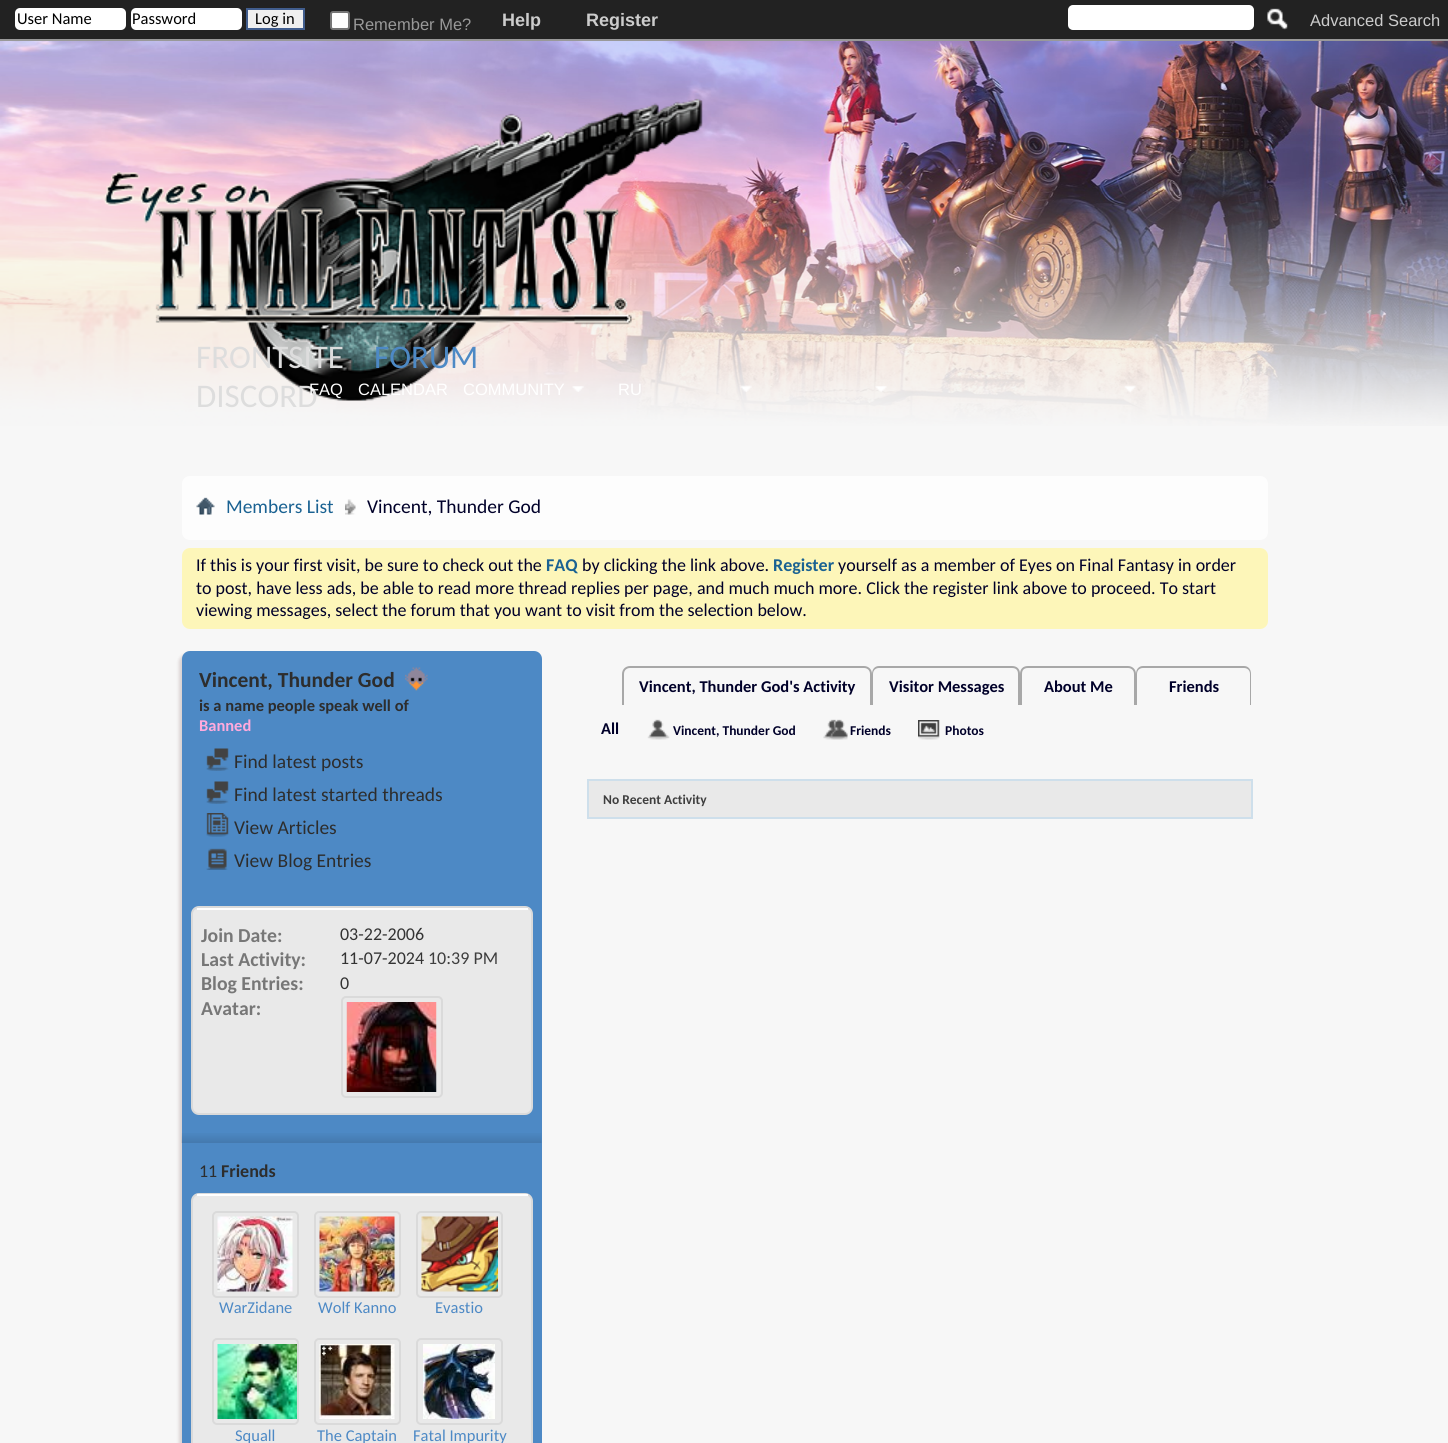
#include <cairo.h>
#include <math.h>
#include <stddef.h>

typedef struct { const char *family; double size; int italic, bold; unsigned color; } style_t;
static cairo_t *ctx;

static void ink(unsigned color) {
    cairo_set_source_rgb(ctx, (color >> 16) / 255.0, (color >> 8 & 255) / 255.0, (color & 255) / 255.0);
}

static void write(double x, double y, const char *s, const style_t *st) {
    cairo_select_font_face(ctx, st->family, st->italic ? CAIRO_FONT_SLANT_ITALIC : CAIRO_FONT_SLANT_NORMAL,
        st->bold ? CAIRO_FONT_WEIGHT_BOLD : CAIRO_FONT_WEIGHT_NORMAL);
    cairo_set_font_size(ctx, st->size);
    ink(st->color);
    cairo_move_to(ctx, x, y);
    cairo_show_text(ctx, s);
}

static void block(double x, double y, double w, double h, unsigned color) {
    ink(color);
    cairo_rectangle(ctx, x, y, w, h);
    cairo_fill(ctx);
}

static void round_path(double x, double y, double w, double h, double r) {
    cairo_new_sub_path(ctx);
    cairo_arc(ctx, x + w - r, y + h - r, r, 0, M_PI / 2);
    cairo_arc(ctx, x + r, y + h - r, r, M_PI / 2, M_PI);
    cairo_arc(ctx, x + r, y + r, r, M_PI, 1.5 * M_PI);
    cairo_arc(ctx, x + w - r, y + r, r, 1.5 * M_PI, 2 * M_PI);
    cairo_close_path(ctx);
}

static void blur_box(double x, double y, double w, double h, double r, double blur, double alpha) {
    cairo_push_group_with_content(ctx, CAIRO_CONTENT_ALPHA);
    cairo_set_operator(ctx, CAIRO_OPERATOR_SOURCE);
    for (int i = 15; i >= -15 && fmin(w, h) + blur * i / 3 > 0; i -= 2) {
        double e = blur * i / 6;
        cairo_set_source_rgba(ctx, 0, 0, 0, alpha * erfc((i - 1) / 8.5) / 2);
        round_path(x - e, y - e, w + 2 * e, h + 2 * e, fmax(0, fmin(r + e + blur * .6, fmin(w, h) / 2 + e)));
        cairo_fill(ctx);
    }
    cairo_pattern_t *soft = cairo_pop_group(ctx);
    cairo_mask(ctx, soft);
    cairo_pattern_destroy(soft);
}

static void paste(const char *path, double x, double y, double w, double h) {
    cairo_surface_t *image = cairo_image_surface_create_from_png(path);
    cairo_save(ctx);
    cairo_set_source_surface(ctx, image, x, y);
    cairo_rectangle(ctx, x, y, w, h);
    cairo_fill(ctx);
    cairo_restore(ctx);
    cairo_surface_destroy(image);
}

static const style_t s1 = {"Carlito", 16.5, 0, 0, 0x000000};
static const style_t s2 = {"Liberation Sans", 16.5, 0, 0, 0x999999};
static const style_t s3 = {"Liberation Sans", 18, 0, 1, 0xcccccc};
static const style_t s4 = {"Liberation Sans", 16.5, 0, 0, 0xcccccc};
static const style_t s5 = {"Carlito", 33, 0, 0, 0xdddddd};
static const style_t s6 = {"Carlito", 33, 0, 0, 0x4d89c5};
static const style_t s7 = {"Liberation Sans", 16.5, 0, 0, 0xffffff};
static const style_t s8 = {"Carlito", 19.5, 0, 0, 0x1a6292};
static const style_t s9 = {"Carlito", 19.5, 0, 0, 0x000029};
static const style_t s10 = {"Carlito", 18, 0, 0, 0x000029};
static const style_t s11 = {"Carlito", 18, 0, 1, 0x1a6292};
static const style_t s12 = {"Carlito", 21.5, 0, 1, 0x2d2d2d};
static const style_t s13 = {"Carlito", 16.5, 0, 1, 0x2d2d2d};
static const style_t s14 = {"Carlito", 16.5, 0, 1, 0xffaadd};
static const style_t s15 = {"Carlito", 19.5, 0, 0, 0x2d2d2d};
static const style_t s16 = {"Carlito", 19.75, 0, 1, 0x777777};
static const style_t s17 = {"Carlito", 18, 0, 0, 0x333333};
static const style_t s18 = {"Carlito", 18, 0, 0, 0x3e3e3e};
static const style_t s19 = {"Carlito", 18, 0, 0, 0x2d2d2d};
static const style_t s20 = {"Carlito", 18, 0, 1, 0x2d2d2d};
static const style_t s21 = {"Carlito", 16.5, 0, 0, 0x4d89c5};
static const style_t s22 = {"Carlito", 16.5, 0, 1, 0x000029};
static const style_t s23 = {"Carlito", 13.5, 0, 1, 0x000029};
static const style_t s24 = {"Carlito", 13.5, 0, 1, 0x3e3e3e};

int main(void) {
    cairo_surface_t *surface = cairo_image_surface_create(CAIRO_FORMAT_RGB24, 1448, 1443);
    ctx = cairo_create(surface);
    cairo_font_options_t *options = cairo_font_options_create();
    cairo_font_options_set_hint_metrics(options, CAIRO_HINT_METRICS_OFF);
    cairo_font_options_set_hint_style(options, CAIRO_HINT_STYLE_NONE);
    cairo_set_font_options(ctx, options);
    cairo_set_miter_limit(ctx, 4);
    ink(0xf7f7f7);
    cairo_paint(ctx);
    paste("pic1.png", 0, 41, 1448, 385);
    paste("pic2.png", 103, 98, 600, 303);
    block(0, 0, 1448, 39, 0x222222);
    block(0, 39, 1448, 2, 0x999999);
    ink(0xffffff);
    round_path(15, 8, 111, 22, 5);
    cairo_fill(ctx);
    write(17, 24, "User Name", &s1);
    ink(0xffffff);
    round_path(131, 8, 111, 22, 5);
    cairo_fill(ctx);
    write(132, 24, "Password", &s1);
    ink(0xefefef);
    cairo_rectangle(ctx, 247, 9, 57, 20);
    cairo_fill_preserve(ctx);
    ink(0x415d8d);
    cairo_stroke(ctx);
    write(255, 24, "Log in", &s1);
    ink(0xffffff);
    round_path(331, 12, 18, 17, 2);
    cairo_fill_preserve(ctx);
    ink(0x767676);
    cairo_stroke(ctx);
    write(353, 30, "Remember Me?", &s2);
    write(502, 26, "Help", &s3);
    write(586, 26, "Register", &s3);
    ink(0xffffff);
    round_path(1069, 6, 184, 23, 4);
    cairo_fill_preserve(ctx);
    cairo_stroke(ctx);
    paste("pic3.png", 1267, 8, 21, 22);
    write(1310, 26, "Advanced Search", &s4);
    write(196, 368, "FRONTSITE", &s5);
    write(374, 368, "FORUM", &s6);
    write(196, 407, "DISCORD", &s5);
    write(309, 395, "FAQ", &s7);
    write(358, 395, "CALENDAR", &s7);
    write(463, 395, "COMMUNITY", &s7);
    paste("pic4.png", 572, 386, 12, 6);
    write(618, 395, "RU", &s7);
    paste("pic5.png", 740, 385, 12, 7);
    paste("pic6.png", 875, 386, 12, 6);
    paste("pic7.png", 1124, 385, 12, 8);
    ink(0xfdfdfd);
    round_path(182, 476, 1086, 64, 8);
    cairo_fill(ctx);
    paste("pic8.png", 196, 497, 19, 18);
    paste("pic9.png", 345, 499, 11, 16);
    write(226, 513, "Members List", &s8);
    write(367, 513, "Vincent, Thunder God", &s9);
    ink(0xfdf6b9);
    round_path(182, 548, 1086, 81, 8);
    cairo_fill(ctx);
    write(196, 571, "If this is your first visit, be sure to check out the", &s10);
    write(546, 571, "FAQ", &s11);
    write(582, 571, "by clicking the link above.", &s10);
    write(773, 571, "Register", &s11);
    write(838, 571, "yourself as a member of Eyes on Final Fantasy in order", &s10);
    write(196, 594, "to post, have less ads, be able to read more thread replies per page, and much much more. Click the register link above to proceed. To start", &s10);
    write(196, 616, "viewing messages, select the forum that you want to visit from the selection below.", &s10);
    ink(0x320000);
    blur_box(179, 654, 360, 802, 8, 1.5, 0.15);
    ink(0x4d89c5);
    round_path(182, 651, 360, 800, 8);
    cairo_fill(ctx);
    write(199, 687, "Vincent, Thunder God", &s12);
    paste("pic10.png", 405, 667, 23, 24);
    write(199, 711, "is a name people speak well of", &s13);
    write(199, 731, "Banned", &s14);
    paste("pic11.png", 206, 748, 23, 23);
    write(234, 768, "Find latest posts", &s15);
    paste("pic11.png", 206, 781, 23, 23);
    write(234, 801, "Find latest started threads", &s15);
    paste("pic12.png", 206, 813, 23, 24);
    write(234, 834, "View Articles", &s15);
    paste("pic13.png", 206, 848, 22, 22);
    write(234, 867, "View Blog Entries", &s15);
    ink(0xe9e9e9);
    round_path(192, 907, 340, 207, 7);
    cairo_fill_preserve(ctx);
    ink(0xdadada);
    cairo_stroke(ctx);
    block(197, 908, 331, 2, 0xffffff);
    write(201, 942, "Join Date:", &s16);
    write(340, 940, "03-22-2006", &s17);
    write(201, 966, "Last Activity:", &s16);
    write(340, 964, "11-07-2024", &s17);
    write(428, 964, "10:39 PM", &s18);
    write(201, 990, "Blog Entries:", &s16);
    write(340, 989, "0", &s17);
    write(201, 1015, "Avatar:", &s16);
    round_path(342, 997, 100, 100, 4);
    ink(0xdadada);
    cairo_stroke(ctx);
    paste("pic14.png", 346, 1002, 91, 90);
    paste("pic15.png", 181, 1133, 361, 10);
    write(199, 1177, "11", &s19);
    write(221, 1177, "Friends", &s20);
    ink(0xe9e9e9);
    round_path(192, 1194, 340, 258, 7);
    cairo_fill_preserve(ctx);
    ink(0xdadada);
    cairo_stroke(ctx);
    block(197, 1194, 331, 2, 0xffffff);
    round_path(213, 1212, 85, 85, 4);
    ink(0xdadada);
    cairo_stroke(ctx);
    paste("pic16.png", 217, 1216, 76, 76);
    write(219, 1313, "WarZidane", &s21);
    round_path(315, 1212, 85, 85, 4);
    ink(0xdadada);
    cairo_stroke(ctx);
    paste("pic17.png", 319, 1216, 76, 76);
    write(318, 1313, "Wolf Kanno", &s21);
    round_path(417, 1212, 85, 85, 4);
    ink(0xdadada);
    cairo_stroke(ctx);
    paste("pic18.png", 421, 1216, 77, 76);
    write(435, 1313, "Evastio", &s21);
    round_path(213, 1339, 85, 85, 4);
    ink(0xdadada);
    cairo_stroke(ctx);
    paste("pic19.png", 217, 1344, 80, 75);
    write(235, 1441, "Squall", &s21);
    round_path(315, 1339, 85, 85, 4);
    ink(0xdadada);
    cairo_stroke(ctx);
    paste("pic20.png", 319, 1344, 76, 75);
    write(317, 1441, "The Captain", &s21);
    round_path(417, 1339, 85, 85, 4);
    ink(0xdadada);
    cairo_stroke(ctx);
    paste("pic21.png", 423, 1344, 72, 75);
    write(413, 1441, "Fatal Impurity", &s21);
    ink(0xa8a8a8);
    cairo_set_fill_rule(ctx, CAIRO_FILL_RULE_EVEN_ODD);
    cairo_new_path(ctx);
    cairo_move_to(ctx, 630, 666);
    cairo_line_to(ctx, 864, 666);
    cairo_curve_to(ctx, 868, 666, 872, 669, 872, 674);
    cairo_line_to(ctx, 872, 705);
    cairo_line_to(ctx, 622, 705);
    cairo_line_to(ctx, 622, 674);
    cairo_curve_to(ctx, 622, 669, 626, 666, 630, 666);
    cairo_close_path(ctx);
    cairo_move_to(ctx, 630, 668);
    cairo_line_to(ctx, 864, 668);
    cairo_curve_to(ctx, 867, 668, 870, 670, 870, 674);
    cairo_line_to(ctx, 870, 705);
    cairo_line_to(ctx, 624, 705);
    cairo_line_to(ctx, 624, 674);
    cairo_curve_to(ctx, 624, 670, 627, 668, 630, 668);
    cairo_close_path(ctx);
    cairo_fill(ctx);
    write(639, 692, "Vincent, Thunder God's Activity", &s22);
    ink(0xa8a8a8);
    cairo_new_path(ctx);
    cairo_move_to(ctx, 879, 666);
    cairo_line_to(ctx, 1012, 666);
    cairo_curve_to(ctx, 1017, 666, 1020, 669, 1020, 674);
    cairo_line_to(ctx, 1020, 705);
    cairo_line_to(ctx, 872, 705);
    cairo_line_to(ctx, 872, 674);
    cairo_curve_to(ctx, 872, 669, 875, 666, 879, 666);
    cairo_close_path(ctx);
    cairo_move_to(ctx, 879, 668);
    cairo_line_to(ctx, 1012, 668);
    cairo_curve_to(ctx, 1016, 668, 1018, 670, 1018, 674);
    cairo_line_to(ctx, 1018, 705);
    cairo_line_to(ctx, 873, 705);
    cairo_line_to(ctx, 873, 674);
    cairo_curve_to(ctx, 873, 670, 876, 668, 879, 668);
    cairo_close_path(ctx);
    cairo_fill(ctx);
    write(889, 692, "Visitor Messages", &s22);
    ink(0xa8a8a8);
    cairo_new_path(ctx);
    cairo_move_to(ctx, 1028, 666);
    cairo_line_to(ctx, 1128, 666);
    cairo_curve_to(ctx, 1132, 666, 1136, 669, 1136, 674);
    cairo_line_to(ctx, 1136, 705);
    cairo_line_to(ctx, 1020, 705);
    cairo_line_to(ctx, 1020, 674);
    cairo_curve_to(ctx, 1020, 669, 1023, 666, 1028, 666);
    cairo_close_path(ctx);
    cairo_move_to(ctx, 1028, 668);
    cairo_line_to(ctx, 1128, 668);
    cairo_curve_to(ctx, 1131, 668, 1134, 670, 1134, 674);
    cairo_line_to(ctx, 1134, 705);
    cairo_line_to(ctx, 1022, 705);
    cairo_line_to(ctx, 1022, 674);
    cairo_curve_to(ctx, 1022, 670, 1024, 668, 1028, 668);
    cairo_close_path(ctx);
    cairo_fill(ctx);
    write(1044, 692, "About Me", &s22);
    ink(0xa8a8a8);
    cairo_new_path(ctx);
    cairo_move_to(ctx, 1143, 666);
    cairo_line_to(ctx, 1244, 666);
    cairo_curve_to(ctx, 1248, 666, 1251, 669, 1251, 674);
    cairo_line_to(ctx, 1251, 705);
    cairo_line_to(ctx, 1136, 705);
    cairo_line_to(ctx, 1136, 674);
    cairo_curve_to(ctx, 1136, 669, 1139, 666, 1143, 666);
    cairo_close_path(ctx);
    cairo_move_to(ctx, 1143, 668);
    cairo_line_to(ctx, 1244, 668);
    cairo_curve_to(ctx, 1247, 668, 1250, 670, 1250, 674);
    cairo_line_to(ctx, 1250, 705);
    cairo_line_to(ctx, 1137, 705);
    cairo_line_to(ctx, 1137, 674);
    cairo_curve_to(ctx, 1137, 670, 1140, 668, 1143, 668);
    cairo_close_path(ctx);
    cairo_fill(ctx);
    write(1169, 692, "Friends", &s22);
    write(601, 734, "All", &s22);
    paste("pic22.png", 647, 719, 23, 21);
    write(673, 735, "Vincent, Thunder God", &s23);
    paste("pic23.png", 823, 719, 25, 21);
    write(850, 735, "Friends", &s23);
    paste("pic24.png", 918, 720, 22, 20);
    write(945, 735, "Photos", &s23);
    ink(0xe9e9e9);
    cairo_rectangle(ctx, 588, 780, 664, 38);
    cairo_fill_preserve(ctx);
    ink(0xcedfeb);
    cairo_stroke(ctx);
    write(603, 804, "No Recent Activity", &s24);
    cairo_surface_write_to_png(surface, "screenshot.png");
    cairo_font_options_destroy(options);
    cairo_destroy(ctx);
    cairo_surface_destroy(surface);
    return 0;
}
